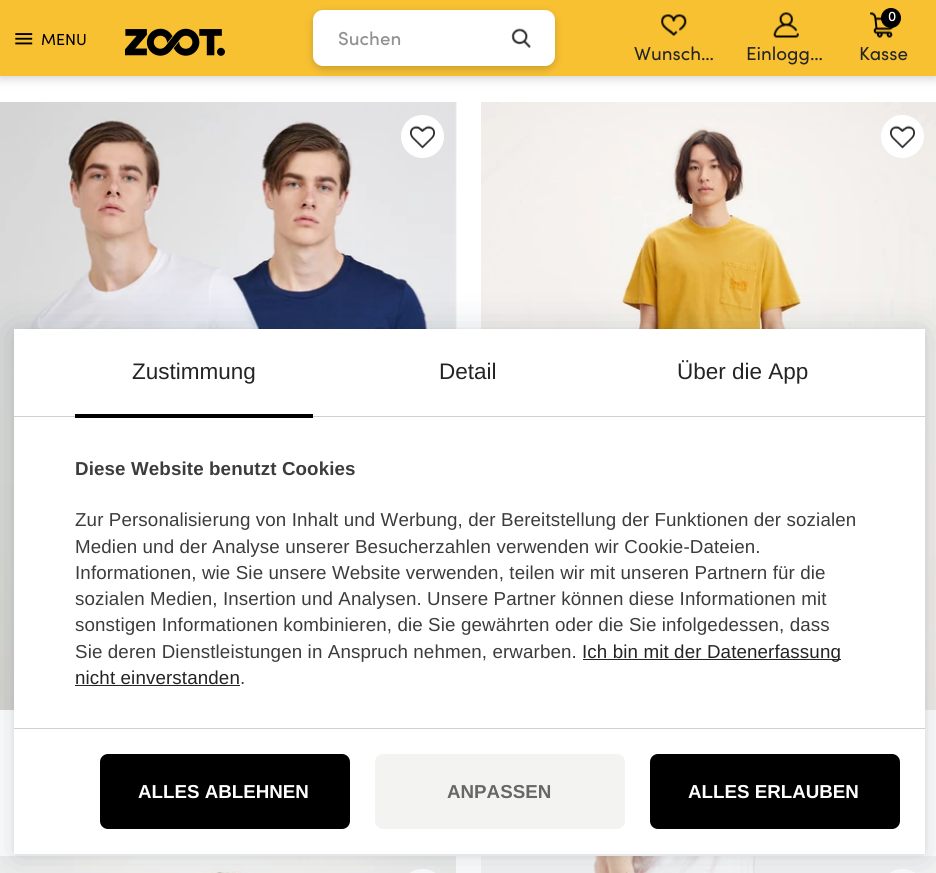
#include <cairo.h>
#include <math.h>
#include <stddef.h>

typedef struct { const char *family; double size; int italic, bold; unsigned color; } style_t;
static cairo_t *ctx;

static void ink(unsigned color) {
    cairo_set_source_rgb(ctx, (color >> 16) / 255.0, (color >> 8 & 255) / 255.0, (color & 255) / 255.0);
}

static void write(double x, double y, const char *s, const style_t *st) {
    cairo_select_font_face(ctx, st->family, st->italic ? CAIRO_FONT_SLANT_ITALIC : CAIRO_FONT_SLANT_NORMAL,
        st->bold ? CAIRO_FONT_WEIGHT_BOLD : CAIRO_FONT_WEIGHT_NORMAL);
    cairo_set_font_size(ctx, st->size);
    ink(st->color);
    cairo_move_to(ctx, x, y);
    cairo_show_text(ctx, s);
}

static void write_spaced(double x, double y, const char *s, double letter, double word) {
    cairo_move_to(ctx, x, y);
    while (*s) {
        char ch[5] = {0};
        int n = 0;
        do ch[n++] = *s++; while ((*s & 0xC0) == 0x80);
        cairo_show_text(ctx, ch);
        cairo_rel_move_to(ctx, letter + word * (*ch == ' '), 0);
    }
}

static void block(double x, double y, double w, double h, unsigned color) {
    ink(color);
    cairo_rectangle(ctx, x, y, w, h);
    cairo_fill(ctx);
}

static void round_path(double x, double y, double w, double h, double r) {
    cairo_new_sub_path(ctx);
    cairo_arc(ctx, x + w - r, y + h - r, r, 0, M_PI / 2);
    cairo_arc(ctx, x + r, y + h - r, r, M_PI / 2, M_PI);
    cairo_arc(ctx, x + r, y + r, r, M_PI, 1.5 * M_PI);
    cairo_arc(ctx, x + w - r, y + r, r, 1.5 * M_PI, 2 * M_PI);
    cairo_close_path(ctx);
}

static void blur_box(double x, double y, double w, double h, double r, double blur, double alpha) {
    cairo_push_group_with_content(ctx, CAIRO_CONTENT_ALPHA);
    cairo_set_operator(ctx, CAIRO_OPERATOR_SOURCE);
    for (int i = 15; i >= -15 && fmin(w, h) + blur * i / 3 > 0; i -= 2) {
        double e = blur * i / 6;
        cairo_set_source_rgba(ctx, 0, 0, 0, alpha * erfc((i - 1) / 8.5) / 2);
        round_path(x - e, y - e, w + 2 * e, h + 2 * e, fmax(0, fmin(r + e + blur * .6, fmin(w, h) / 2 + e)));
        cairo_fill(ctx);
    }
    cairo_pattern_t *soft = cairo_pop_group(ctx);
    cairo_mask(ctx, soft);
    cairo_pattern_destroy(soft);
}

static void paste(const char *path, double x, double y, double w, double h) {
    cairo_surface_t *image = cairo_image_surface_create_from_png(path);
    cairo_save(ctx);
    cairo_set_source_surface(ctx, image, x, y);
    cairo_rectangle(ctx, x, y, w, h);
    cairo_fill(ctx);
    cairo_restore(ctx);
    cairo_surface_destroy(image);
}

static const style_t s1 = {"Sofia", 16, 0, 0, 0x000000};
static const style_t s2 = {"Sofia Medium", 18.75, 0, 0, 0x929292};
static const style_t s3 = {"Sofia", 18.75, 0, 0, 0x242424};
static const style_t s4 = {"Sofia Medium", 14, 0, 0, 0xffffff};
static const style_t s5 = {"Liberation Sans", 22.5, 0, 0, 0x242424};
static const style_t s6 = {"Liberation Sans", 18.75, 0, 1, 0xffffff};
static const style_t s7 = {"Liberation Sans", 18.75, 0, 1, 0x676767};

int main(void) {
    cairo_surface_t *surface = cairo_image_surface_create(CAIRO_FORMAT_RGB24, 936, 873);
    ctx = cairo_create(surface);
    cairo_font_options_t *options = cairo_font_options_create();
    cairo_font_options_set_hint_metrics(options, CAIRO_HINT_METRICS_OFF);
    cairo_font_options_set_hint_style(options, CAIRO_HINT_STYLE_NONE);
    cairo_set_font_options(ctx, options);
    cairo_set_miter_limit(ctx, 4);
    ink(0xffffff);
    cairo_paint(ctx);
    ink(0x000000);
    blur_box(0, 1, 936, 77, 0, 5.5, 0.2);
    block(0, 0, 936, 76, 0xf8c132);
    paste("pic1.png", 15, 33, 18, 12);
    write(41, 45, "MENU", &s1);
    paste("pic2.png", 125, 28, 100, 28);
    ink(0xba922b);
    blur_box(313, 13, 242, 56, 10, 4, 0.75);
    ink(0xffffff);
    round_path(313, 10, 242, 56, 10);
    cairo_fill(ctx);
    write(338, 45, "Suchen", &s2);
    paste("pic3.png", 511, 28, 20, 20);
    paste("pic4.png", 661, 14, 26, 22);
    write(634, 60, "Wunsch…", &s3);
    paste("pic5.png", 773, 12, 26, 26);
    write(746, 60, "Einlogg…", &s3);
    paste("pic6.png", 870, 12, 24, 26);
    ink(0x000000);
    cairo_arc(ctx, 891, 18, 9.5, 0, 2 * M_PI);
    cairo_fill_preserve(ctx);
    cairo_set_line_width(ctx, 1);
    cairo_stroke(ctx);
    write(888, 21, "0", &s4);
    write(859, 60, "Kasse", &s3);
    paste("pic7.png", 0, 102, 457, 608);
    ink(0xffffff);
    cairo_arc(ctx, 422.5, 136.5, 21.5, 0, 2 * M_PI);
    cairo_fill(ctx);
    paste("pic8.png", 410, 125, 25, 24);
    paste("pic9.png", 481, 102, 455, 608);
    cairo_arc(ctx, 902.5, 136.5, 21.5, 0, 2 * M_PI);
    cairo_fill(ctx);
    paste("pic8.png", 890, 125, 25, 24);
    paste("pic10.png", 0, 856, 456, 17);
    round_path(401, 869, 43, 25, 21);
    cairo_fill(ctx);
    block(481, 856, 455, 17, 0xf4f4f4);
    paste("pic11.png", 593, 856, 162, 17);
    ink(0xffffff);
    round_path(881, 869, 43, 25, 21);
    cairo_fill(ctx);
    ink(0x051b2c);
    blur_box(14, 331, 911, 525, 0, 20, 0.16);
    blur_box(14, 330, 911, 525, 0, 4, 0.06);
    block(14, 329, 911, 525, 0xffffff);
    block(14, 416, 911, 1, 0xd0d0d0);
    write(132, 379, "Zustimmung", &s5);
    block(75, 414, 238, 4, 0x000000);
    write(439, 379, "Detail", &s5);
    write(677, 379, "Über die App", &s5);
    cairo_select_font_face(ctx, "Liberation Sans", CAIRO_FONT_SLANT_NORMAL, CAIRO_FONT_WEIGHT_BOLD);
    cairo_set_font_size(ctx, 18.75);
    ink(0x3c3c3c);
    write_spaced(75, 475, "Diese Website benutzt Cookies", 0.12, 0);
    cairo_select_font_face(ctx, "Liberation Sans", CAIRO_FONT_SLANT_NORMAL, CAIRO_FONT_WEIGHT_NORMAL);
    write_spaced(75, 526, "Zur Personalisierung von Inhalt und Werbung, der Bereitstellung der Funktionen der sozialen", 0.12, 0);
    write_spaced(75, 553, "Medien und der Analyse unserer Besucherzahlen verwenden wir Cookie-Dateien.", 0.12, 0);
    write_spaced(75, 579, "Informationen, wie Sie unsere Website verwenden, teilen wir mit unseren Partnern für die", 0.12, 0);
    write_spaced(75, 605, "sozialen Medien, Insertion und Analysen. Unsere Partner können diese Informationen mit", 0.12, 0);
    write_spaced(75, 631, "sonstigen Informationen kombinieren, die Sie gewährten oder die Sie infolgedessen, dass", 0.12, 0);
    write_spaced(75, 658, "Sie deren Dienstleistungen in Anspruch nehmen, erwarben.", 0.12, 0);
    block(583, 659, 258, 1, 0x242424);
    write_spaced(582, 658, "Ich bin mit der Datenerfassung", 0.12, 0);
    write_spaced(75, 684, "nicht einverstanden", 0.12, 0);
    block(75, 685, 165, 1, 0x242424);
    ink(0x3c3c3c);
    write_spaced(240, 684, ".", 0.12, 0);
    block(14, 728, 911, 1, 0xd0d0d0);
    ink(0x000000);
    round_path(100, 754, 250, 75, 8);
    cairo_fill(ctx);
    write(138, 798, "ALLES ABLEHNEN", &s6);
    ink(0xf3f3f2);
    round_path(375, 754, 250, 75, 8);
    cairo_fill(ctx);
    write(447, 798, "ANPASSEN", &s7);
    ink(0x000000);
    round_path(650, 754, 250, 75, 8);
    cairo_fill(ctx);
    write(688, 798, "ALLES ERLAUBEN", &s6);
    cairo_surface_write_to_png(surface, "screenshot.png");
    cairo_font_options_destroy(options);
    cairo_destroy(ctx);
    cairo_surface_destroy(surface);
    return 0;
}
